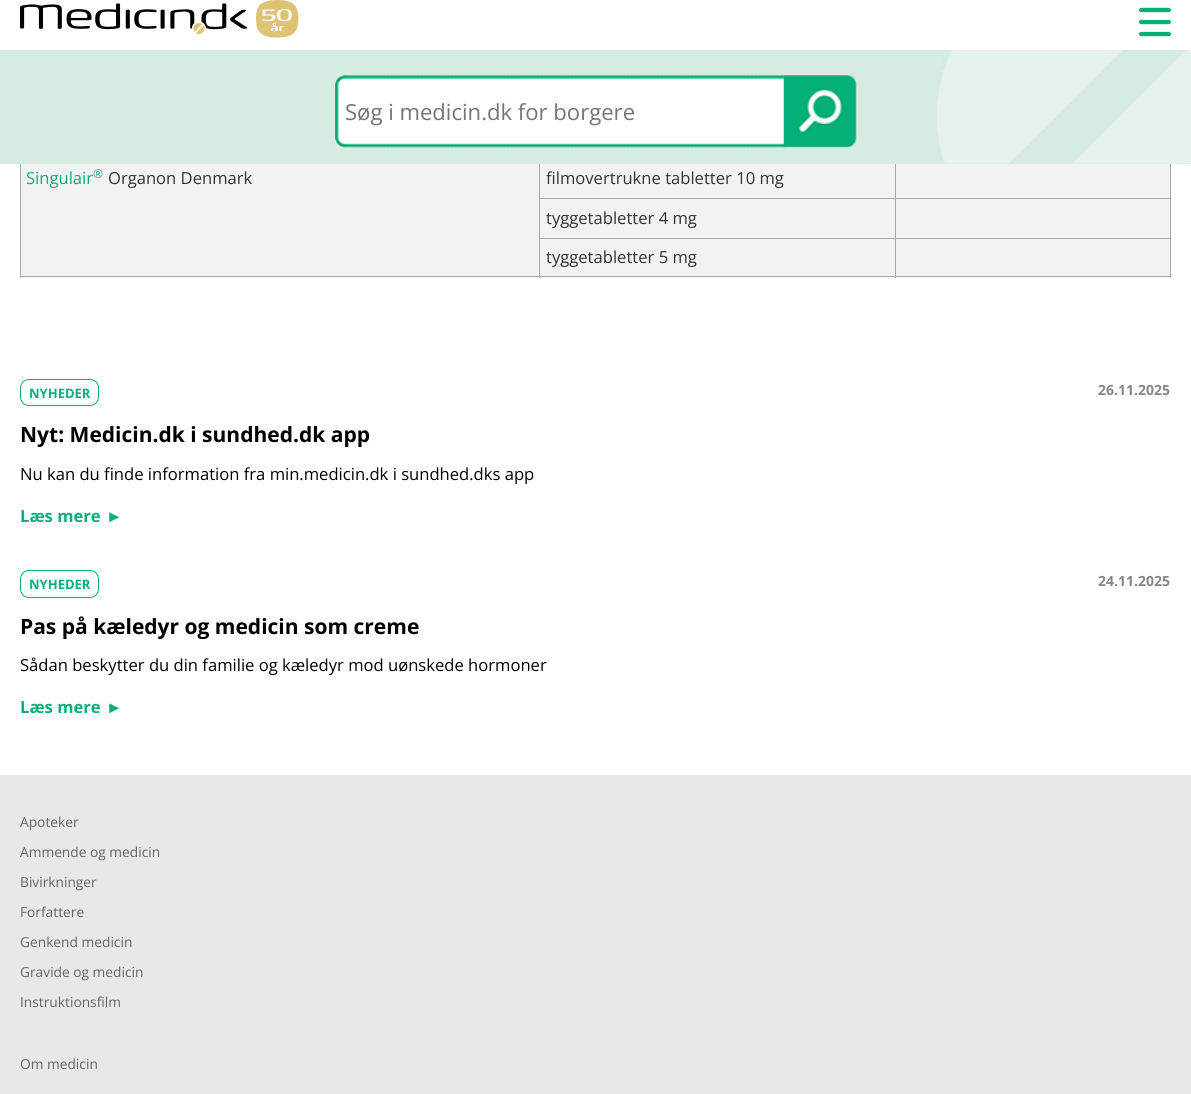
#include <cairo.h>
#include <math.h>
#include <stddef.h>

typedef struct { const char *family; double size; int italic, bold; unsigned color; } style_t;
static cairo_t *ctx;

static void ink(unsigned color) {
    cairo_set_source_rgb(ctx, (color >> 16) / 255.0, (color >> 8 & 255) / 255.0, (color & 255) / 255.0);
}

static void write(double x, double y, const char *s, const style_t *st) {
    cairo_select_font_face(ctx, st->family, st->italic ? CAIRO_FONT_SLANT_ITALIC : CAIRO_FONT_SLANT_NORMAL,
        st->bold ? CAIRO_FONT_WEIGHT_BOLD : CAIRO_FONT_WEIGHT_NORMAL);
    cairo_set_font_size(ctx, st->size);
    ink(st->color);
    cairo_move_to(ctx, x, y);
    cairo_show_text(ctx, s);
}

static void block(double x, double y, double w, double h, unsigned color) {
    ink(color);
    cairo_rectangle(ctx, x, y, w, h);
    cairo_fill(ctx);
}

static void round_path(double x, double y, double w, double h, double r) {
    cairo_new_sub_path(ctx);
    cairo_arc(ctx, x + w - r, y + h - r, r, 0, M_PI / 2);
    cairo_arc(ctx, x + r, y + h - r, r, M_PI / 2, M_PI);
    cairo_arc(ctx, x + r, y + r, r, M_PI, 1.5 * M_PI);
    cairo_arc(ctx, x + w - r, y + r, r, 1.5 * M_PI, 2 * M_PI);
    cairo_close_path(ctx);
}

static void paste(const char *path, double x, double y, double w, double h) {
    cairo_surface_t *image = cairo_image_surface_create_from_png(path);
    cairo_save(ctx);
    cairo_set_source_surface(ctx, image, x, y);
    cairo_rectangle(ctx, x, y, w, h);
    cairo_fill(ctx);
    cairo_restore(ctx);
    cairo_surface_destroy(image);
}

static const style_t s1 = {"Open Sans", 22.1, 0, 0, 0x757575};
static const style_t s2 = {"Open Sans", 16.6, 0, 0, 0x05af7a};
static const style_t s3 = {"Open Sans", 12, 0, 0, 0x05af7a};
static const style_t s4 = {"Open Sans", 16.6, 0, 0, 0x333333};
static const style_t s5 = {"Open Sans", 13, 0, 1, 0x05af7a};
static const style_t s6 = {"Open Sans", 14, 0, 1, 0x868686};
static const style_t s7 = {"Open Sans", 21, 0, 1, 0x000000};
static const style_t s8 = {"Open Sans", 16.6, 0, 0, 0x000000};
static const style_t s9 = {"Open Sans", 16.6, 0, 1, 0x05af7a};
static const style_t s10 = {"Liberation Sans", 16.6, 0, 1, 0x05af7a};
static const style_t s11 = {"Open Sans", 13.75, 0, 0, 0x646464};

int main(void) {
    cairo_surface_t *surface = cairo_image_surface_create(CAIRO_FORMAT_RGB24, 1191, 1094);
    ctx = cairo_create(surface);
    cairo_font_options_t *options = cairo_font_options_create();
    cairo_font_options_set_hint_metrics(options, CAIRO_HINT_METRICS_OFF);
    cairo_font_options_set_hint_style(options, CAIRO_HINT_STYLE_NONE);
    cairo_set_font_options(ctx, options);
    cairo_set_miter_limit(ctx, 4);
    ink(0xffffff);
    cairo_paint(ctx);
    paste("pic1.png", 20, 0, 279, 38);
    paste("pic2.png", 1138, 7, 34, 30);
    block(21, 164, 1149, 114, 0xf2f2f2);
    block(895, 238, 276, 1, 0xa8a8a8);
    block(1170, 238, 1, 40, 0xa8a8a8);
    block(895, 276, 276, 1, 0xa8a8a8);
    block(895, 238, 1, 40, 0xa8a8a8);
    block(539, 276, 357, 1, 0xa8a8a8);
    block(539, 238, 357, 1, 0xa8a8a8);
    block(539, 238, 1, 40, 0xa8a8a8);
    block(20, 276, 520, 1, 0xa8a8a8);
    block(20, 158, 1, 120, 0xa8a8a8);
    block(895, 198, 276, 1, 0xa8a8a8);
    block(895, 198, 1, 41, 0xa8a8a8);
    block(539, 198, 357, 1, 0xa8a8a8);
    block(895, 158, 1, 41, 0xa8a8a8);
    block(539, 158, 1, 81, 0xa8a8a8);
    block(1170, 158, 1, 81, 0xa8a8a8);
    block(0, 50, 1191, 114, 0xd6ece0);
    paste("pic3.png", 936, 50, 255, 114);
    ink(0xffffff);
    cairo_new_path(ctx);
    cairo_move_to(ctx, 344, 75);
    cairo_line_to(ctx, 785, 75);
    cairo_line_to(ctx, 785, 148);
    cairo_line_to(ctx, 344, 148);
    cairo_curve_to(ctx, 339, 148, 335, 144, 335, 139);
    cairo_line_to(ctx, 335, 84);
    cairo_curve_to(ctx, 335, 79, 339, 75, 344, 75);
    cairo_close_path(ctx);
    cairo_fill(ctx);
    paste("pic4.png", 335, 75, 450, 73);
    write(345, 120, "Søg i medicin.dk for borgere", &s1);
    paste("pic5.png", 783, 75, 74, 73);
    write(26, 184, "Singulair", &s2);
    write(93, 178, "®", &s3);
    write(108, 184, "Organon Denmark", &s4);
    write(546, 184, "filmovertrukne tabletter 10 mg", &s4);
    write(546, 224, "tyggetabletter 4 mg", &s4);
    write(546, 263, "tyggetabletter 5 mg", &s4);
    round_path(20.5, 379.5, 78, 26, 8.5);
    ink(0x05af7a);
    cairo_set_line_width(ctx, 1);
    cairo_stroke(ctx);
    write(29, 398, "NYHEDER", &s5);
    write(1098, 395, "26.11.2025", &s6);
    write(20, 442, "Nyt: Medicin.dk i sundhed.dk app", &s7);
    write(20, 480, "Nu kan du finde information fra min.medicin.dk i sundhed.dks app", &s8);
    write(20, 522, "Læs mere", &s9);
    write(106, 522, "►", &s10);
    round_path(20.5, 570.5, 78, 27, 8.5);
    cairo_stroke(ctx);
    write(29, 589, "NYHEDER", &s5);
    write(1098, 586, "24.11.2025", &s6);
    write(20, 634, "Pas på kæledyr og medicin som creme", &s7);
    write(20, 671, "Sådan beskytter du din familie og kæledyr mod uønskede hormoner", &s8);
    write(20, 713, "Læs mere", &s9);
    write(106, 713, "►", &s10);
    block(0, 775, 1191, 319, 0xe8e8e8);
    write(20, 827, "Apoteker", &s11);
    write(20, 857, "Ammende og medicin", &s11);
    write(20, 887, "Bivirkninger", &s11);
    write(20, 917, "Forfattere", &s11);
    write(20, 947, "Genkend medicin", &s11);
    write(20, 977, "Gravide og medicin", &s11);
    write(20, 1007, "Instruktionsfilm", &s11);
    write(20, 1069, "Om medicin", &s11);
    cairo_surface_write_to_png(surface, "screenshot.png");
    cairo_font_options_destroy(options);
    cairo_destroy(ctx);
    cairo_surface_destroy(surface);
    return 0;
}
